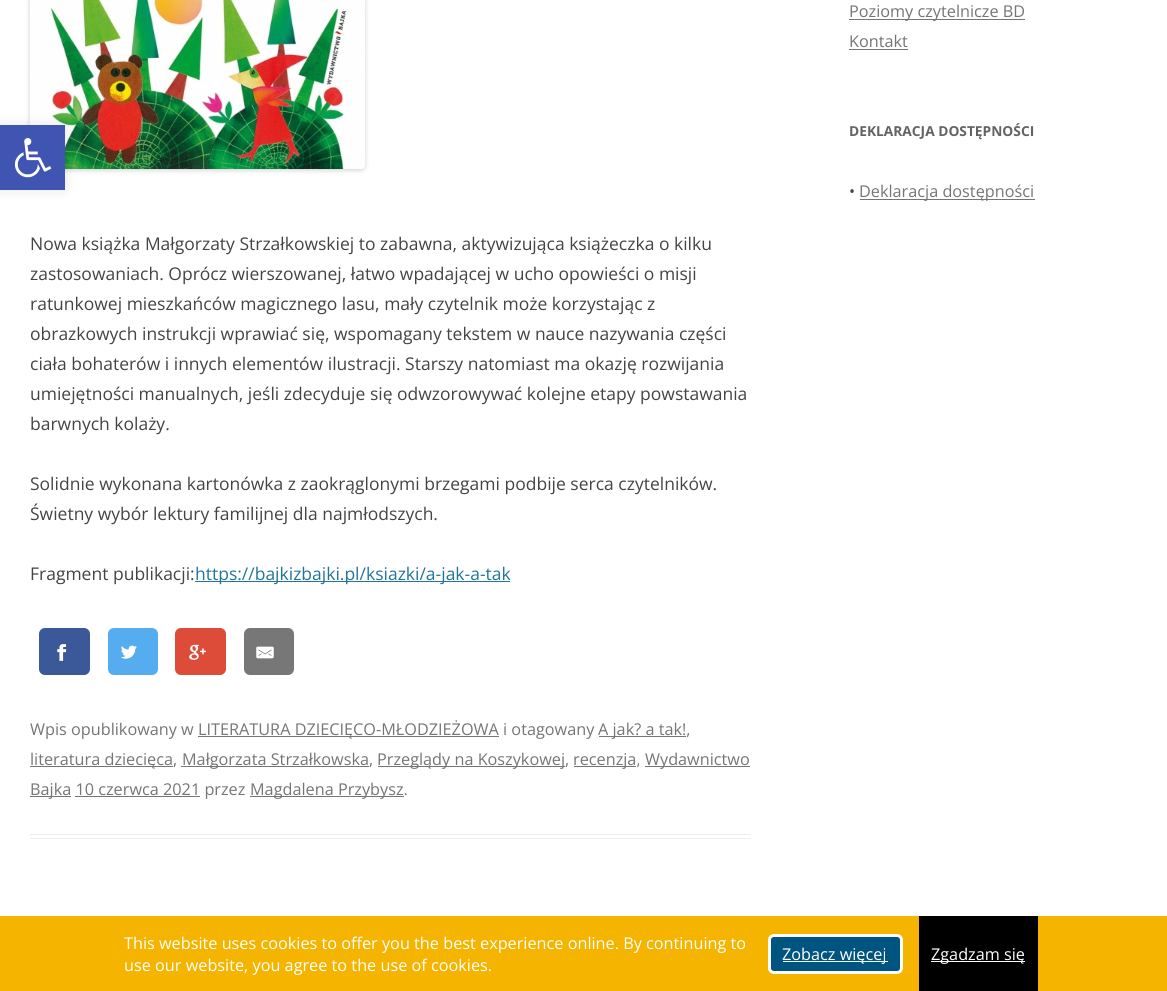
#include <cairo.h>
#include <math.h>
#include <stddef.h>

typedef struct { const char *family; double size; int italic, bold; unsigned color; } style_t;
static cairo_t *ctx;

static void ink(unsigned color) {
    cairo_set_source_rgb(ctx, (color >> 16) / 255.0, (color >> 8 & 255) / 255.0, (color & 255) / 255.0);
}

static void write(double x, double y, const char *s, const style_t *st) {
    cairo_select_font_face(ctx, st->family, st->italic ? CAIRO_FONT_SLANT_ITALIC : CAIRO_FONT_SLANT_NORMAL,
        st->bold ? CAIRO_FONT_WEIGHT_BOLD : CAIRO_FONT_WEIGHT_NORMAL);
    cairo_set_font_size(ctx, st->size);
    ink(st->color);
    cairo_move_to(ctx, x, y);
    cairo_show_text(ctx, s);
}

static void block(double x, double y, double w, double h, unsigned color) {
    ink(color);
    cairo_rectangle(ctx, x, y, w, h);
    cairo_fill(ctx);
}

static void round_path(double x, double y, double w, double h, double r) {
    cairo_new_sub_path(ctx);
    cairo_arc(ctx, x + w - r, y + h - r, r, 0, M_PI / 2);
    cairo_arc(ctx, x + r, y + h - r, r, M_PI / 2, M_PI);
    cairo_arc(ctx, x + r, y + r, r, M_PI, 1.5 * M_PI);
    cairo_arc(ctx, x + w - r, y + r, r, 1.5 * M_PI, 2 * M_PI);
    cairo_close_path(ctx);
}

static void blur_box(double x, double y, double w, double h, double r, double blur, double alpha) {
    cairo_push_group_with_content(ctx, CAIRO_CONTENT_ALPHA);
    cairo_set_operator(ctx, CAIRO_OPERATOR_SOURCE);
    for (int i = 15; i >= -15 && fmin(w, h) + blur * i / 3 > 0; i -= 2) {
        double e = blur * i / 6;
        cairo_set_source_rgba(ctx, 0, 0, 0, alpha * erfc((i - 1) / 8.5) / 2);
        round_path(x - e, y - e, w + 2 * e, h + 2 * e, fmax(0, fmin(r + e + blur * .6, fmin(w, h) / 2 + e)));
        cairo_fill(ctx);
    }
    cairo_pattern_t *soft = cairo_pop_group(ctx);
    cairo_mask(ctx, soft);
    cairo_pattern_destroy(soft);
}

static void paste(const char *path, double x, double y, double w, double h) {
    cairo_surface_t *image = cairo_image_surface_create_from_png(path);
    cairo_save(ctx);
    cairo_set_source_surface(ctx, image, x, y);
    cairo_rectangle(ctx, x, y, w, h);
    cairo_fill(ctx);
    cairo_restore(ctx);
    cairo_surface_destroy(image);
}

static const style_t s1 = {"Open Sans", 16.25, 0, 0, 0x757575};
static const style_t s2 = {"Open Sans", 13.75, 0, 1, 0x636363};
static const style_t s3 = {"Open Sans", 16.25, 0, 0, 0x444444};
static const style_t s4 = {"Open Sans", 17.5, 0, 0, 0x444444};
static const style_t s5 = {"Open Sans", 17.5, 0, 0, 0x21759b};
static const style_t s6 = {"Open Sans", 16.25, 0, 0, 0xffffff};

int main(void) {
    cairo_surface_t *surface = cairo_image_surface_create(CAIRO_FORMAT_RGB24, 1167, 991);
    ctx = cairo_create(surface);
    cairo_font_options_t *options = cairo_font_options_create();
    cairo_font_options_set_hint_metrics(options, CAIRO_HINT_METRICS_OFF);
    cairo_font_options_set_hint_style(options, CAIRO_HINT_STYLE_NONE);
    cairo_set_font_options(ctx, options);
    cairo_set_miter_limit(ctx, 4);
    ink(0xffffff);
    cairo_paint(ctx);
    block(849, 19, 176, 1, 0x757575);
    write(849, 17, "Poziomy czytelnicze BD", &s1);
    write(849, 47, "Kontakt", &s1);
    block(849, 49, 59, 1, 0x757575);
    write(849, 136, "DEKLARACJA DOSTĘPNOŚCI", &s2);
    write(849, 197, "•", &s3);
    block(860, 199, 175, 1, 0x757575);
    write(859, 197, "Deklaracja dostępności", &s1);
    block(30, 834, 721, 1, 0xededed);
    block(30, 838, 721, 1, 0xededed);
    ink(0x000000);
    blur_box(30, -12, 335, 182, 4, 2.5, 0.2);
    paste("pic1.png", 30, 0, 335, 169);
    write(30, 250, "Nowa książka Małgorzaty Strzałkowskiej to zabawna, aktywizująca książeczka o kilku", &s4);
    write(30, 280, "zastosowaniach. Oprócz wierszowanej, łatwo wpadającej w ucho opowieści o misji", &s4);
    write(30, 310, "ratunkowej mieszkańców magicznego lasu, mały czytelnik może korzystając z", &s4);
    write(30, 340, "obrazkowych instrukcji wprawiać się, wspomagany tekstem w nauce nazywania części", &s4);
    write(30, 370, "ciała bohaterów i innych elementów ilustracji. Starszy natomiast ma okazję rozwijania", &s4);
    write(30, 400, "umiejętności manualnych, jeśli zdecyduje się odwzorowywać kolejne etapy powstawania", &s4);
    write(30, 430, "barwnych kolaży.", &s4);
    write(30, 490, "Solidnie wykonana kartonówka z zaokrąglonymi brzegami podbije serca czytelników.", &s4);
    write(30, 520, "Świetny wybór lektury familijnej dla najmłodszych.", &s4);
    write(30, 580, "Fragment publikacji:", &s4);
    block(195, 581, 315, 1, 0x21759b);
    write(195, 580, "https://bajkizbajki.pl/ksiazki/a-jak-a-tak", &s5);
    ink(0x3b5998);
    round_path(39, 628, 51, 47, 6);
    cairo_fill(ctx);
    paste("pic2.png", 57, 644, 10, 17);
    ink(0x55acee);
    round_path(108, 628, 50, 47, 6);
    cairo_fill(ctx);
    paste("pic3.png", 121, 645, 16, 14);
    ink(0xdd4b39);
    round_path(175, 628, 51, 47, 6);
    cairo_fill(ctx);
    paste("pic4.png", 189, 644, 17, 16);
    ink(0x777777);
    round_path(244, 628, 50, 47, 6);
    cairo_fill(ctx);
    paste("pic5.png", 256, 646, 18, 13);
    write(30, 735, "Wpis opublikowany w", &s1);
    block(198, 736, 301, 1, 0x757575);
    write(198, 735, "LITERATURA DZIECIĘCO-MŁODZIEŻOWA i otagowany", &s1);
    block(599, 736, 87, 1, 0x757575);
    write(598, 735, "A jak? a tak!,", &s1);
    block(30, 766, 143, 1, 0x757575);
    write(30, 765, "literatura dziecięca,", &s1);
    block(181, 766, 188, 1, 0x757575);
    write(182, 765, "Małgorzata Strzałkowska,", &s1);
    block(378, 766, 187, 1, 0x757575);
    write(377, 765, "Przeglądy na Koszykowej,", &s1);
    block(574, 766, 62, 1, 0x757575);
    write(573, 765, "recenzja,", &s1);
    block(645, 766, 105, 1, 0x757575);
    write(645, 765, "Wydawnictwo", &s1);
    block(30, 796, 41, 1, 0x757575);
    write(30, 795, "Bajka 10 czerwca 2021 przez", &s1);
    block(250, 796, 154, 1, 0x757575);
    write(250, 795, "Magdalena Przybysz.", &s1);
    block(75, 796, 125, 1, 0x757575);
    ink(0x000000);
    blur_box(0, 125, 65, 65, 0, 6, 0.1);
    block(0, 125, 65, 65, 0x4054b2);
    paste("pic6.png", 14, 138, 38, 40);
    block(0, 916, 1167, 75, 0xf5b400);
    write(124, 949, "This website uses cookies to offer you the best experience online. By continuing to", &s6);
    write(124, 971, "use our website, you agree to the use of cookies.", &s6);
    ink(0x005580);
    round_path(769.5, 935.5, 132, 37, 4.5);
    cairo_fill_preserve(ctx);
    ink(0xffffff);
    cairo_set_line_width(ctx, 3);
    cairo_stroke(ctx);
    block(783, 961, 105, 1, 0xffffff);
    write(782, 960, "Zobacz więcej", &s6);
    block(919, 916, 119, 75, 0x000000);
    block(931, 961, 94, 1, 0xffffff);
    write(931, 960, "Zgadzam się", &s6);
    cairo_surface_write_to_png(surface, "screenshot.png");
    cairo_font_options_destroy(options);
    cairo_destroy(ctx);
    cairo_surface_destroy(surface);
    return 0;
}
